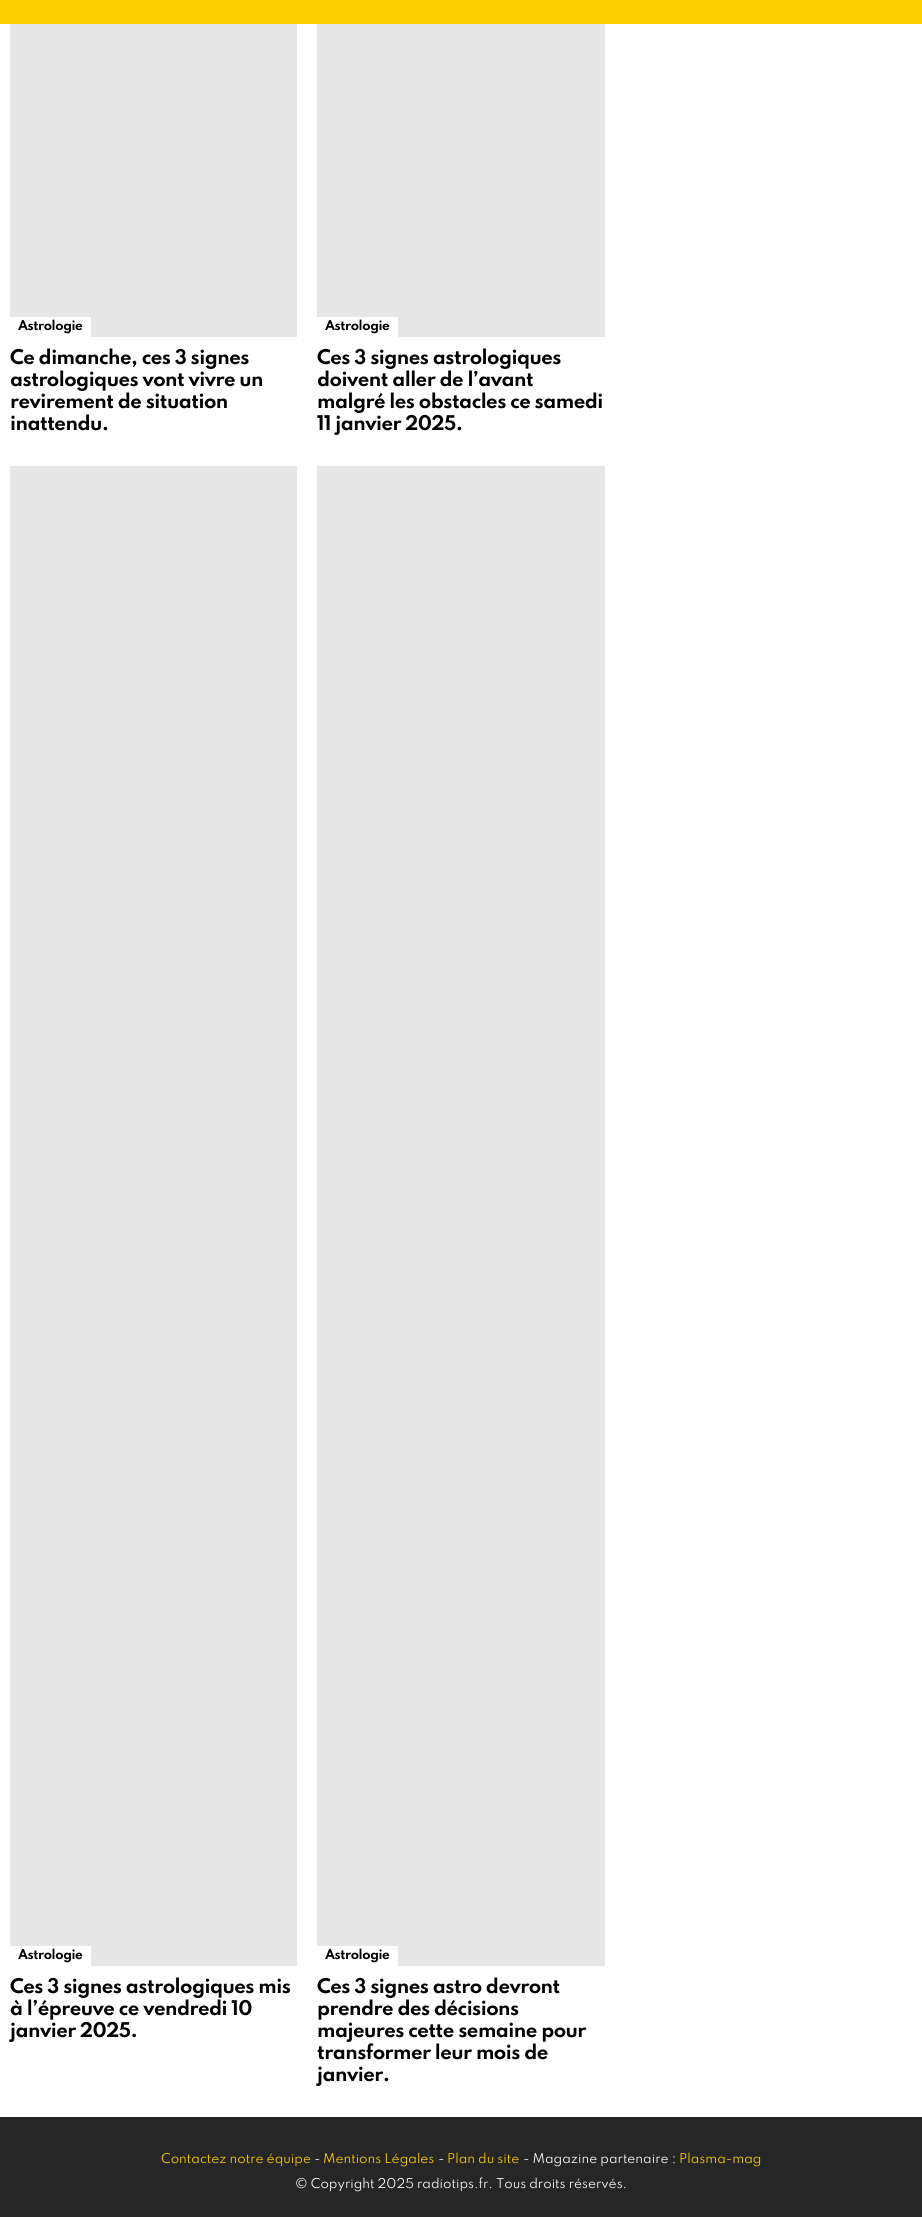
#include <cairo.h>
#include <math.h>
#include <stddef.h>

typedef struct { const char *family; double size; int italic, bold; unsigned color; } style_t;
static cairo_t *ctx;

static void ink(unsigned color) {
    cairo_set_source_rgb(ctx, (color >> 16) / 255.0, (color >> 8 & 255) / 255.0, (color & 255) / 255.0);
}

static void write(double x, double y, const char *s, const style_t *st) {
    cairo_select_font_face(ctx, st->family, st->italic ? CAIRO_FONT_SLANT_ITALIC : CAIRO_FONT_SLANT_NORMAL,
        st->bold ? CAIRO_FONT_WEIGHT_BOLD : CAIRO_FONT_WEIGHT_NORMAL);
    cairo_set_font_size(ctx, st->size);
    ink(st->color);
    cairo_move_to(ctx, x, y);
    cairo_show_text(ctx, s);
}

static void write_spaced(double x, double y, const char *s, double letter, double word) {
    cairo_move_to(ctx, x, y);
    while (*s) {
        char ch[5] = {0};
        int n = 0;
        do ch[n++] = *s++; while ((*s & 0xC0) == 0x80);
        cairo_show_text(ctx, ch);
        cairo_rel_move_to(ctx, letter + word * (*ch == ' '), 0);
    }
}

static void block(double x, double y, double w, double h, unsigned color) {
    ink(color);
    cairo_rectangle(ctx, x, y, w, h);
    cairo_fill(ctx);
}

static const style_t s1 = {"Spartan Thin", 12, 0, 0, 0xffcf00};
static const style_t s2 = {"Spartan Thin", 12, 0, 0, 0xffffff};

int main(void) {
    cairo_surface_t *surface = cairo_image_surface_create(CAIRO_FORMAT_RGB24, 922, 2217);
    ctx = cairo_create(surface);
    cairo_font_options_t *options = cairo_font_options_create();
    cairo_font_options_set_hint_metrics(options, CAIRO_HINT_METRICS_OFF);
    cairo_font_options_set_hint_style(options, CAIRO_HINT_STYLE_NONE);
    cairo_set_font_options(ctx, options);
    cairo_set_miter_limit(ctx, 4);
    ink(0xffffff);
    cairo_paint(ctx);
    block(0, 0, 922, 24, 0xffcf00);
    block(10, 24, 287, 313, 0xe6e6e6);
    block(10, 317, 81, 20, 0xffffff);
    cairo_select_font_face(ctx, "Spartan Thin", CAIRO_FONT_SLANT_NORMAL, CAIRO_FONT_WEIGHT_BOLD);
    cairo_set_font_size(ctx, 12);
    ink(0x000000);
    write_spaced(18, 330, "Astrologie", -0.4, 0);
    cairo_set_font_size(ctx, 18);
    write_spaced(10, 364, "Ce dimanche, ces 3 signes", -0.55, 0);
    write_spaced(10, 386, "astrologiques vont vivre un", -0.55, 0);
    write_spaced(10, 408, "revirement de situation", -0.55, 0);
    write_spaced(10, 430, "inattendu.", -0.55, 0);
    block(317, 24, 288, 313, 0xe6e6e6);
    block(317, 317, 81, 20, 0xffffff);
    cairo_set_font_size(ctx, 12);
    ink(0x000000);
    write_spaced(325, 330, "Astrologie", -0.4, 0);
    cairo_set_font_size(ctx, 18);
    write_spaced(317, 364, "Ces 3 signes astrologiques", -0.55, 0);
    write_spaced(317, 386, "doivent aller de l’avant", -0.55, 0);
    write_spaced(317, 408, "malgré les obstacles ce samedi", -0.55, 0);
    write_spaced(317, 430, "11 janvier 2025.", -0.55, 0);
    block(10, 466, 287, 1500, 0xe6e6e6);
    block(10, 1946, 81, 20, 0xffffff);
    cairo_set_font_size(ctx, 12);
    ink(0x000000);
    write_spaced(18, 1959, "Astrologie", -0.4, 0);
    cairo_set_font_size(ctx, 18);
    write_spaced(10, 1993, "Ces 3 signes astrologiques mis", -0.55, 0);
    write_spaced(10, 2015, "à l’épreuve ce vendredi 10", -0.55, 0);
    write_spaced(10, 2037, "janvier 2025.", -0.55, 0);
    block(317, 466, 288, 1500, 0xe6e6e6);
    block(317, 1946, 81, 20, 0xffffff);
    cairo_set_font_size(ctx, 12);
    ink(0x000000);
    write_spaced(325, 1959, "Astrologie", -0.4, 0);
    cairo_set_font_size(ctx, 18);
    write_spaced(317, 1993, "Ces 3 signes astro devront", -0.55, 0);
    write_spaced(317, 2015, "prendre des décisions", -0.55, 0);
    write_spaced(317, 2037, "majeures cette semaine pour", -0.55, 0);
    write_spaced(317, 2059, "transformer leur mois de", -0.55, 0);
    write_spaced(317, 2081, "janvier.", -0.55, 0);
    block(0, 2117, 922, 100, 0x262626);
    write(161, 2163, "Contactez notre équipe", &s1);
    write(314, 2163, "-", &s2);
    write(323, 2163, "Mentions Légales", &s1);
    write(438, 2163, "-", &s2);
    write(447, 2163, "Plan du site", &s1);
    write(523, 2163, "- Magazine partenaire :", &s2);
    write(679, 2163, "Plasma-mag", &s1);
    write(295, 2188, "© Copyright 2025 radiotips.fr. Tous droits réservés.", &s2);
    cairo_surface_write_to_png(surface, "screenshot.png");
    cairo_font_options_destroy(options);
    cairo_destroy(ctx);
    cairo_surface_destroy(surface);
    return 0;
}
